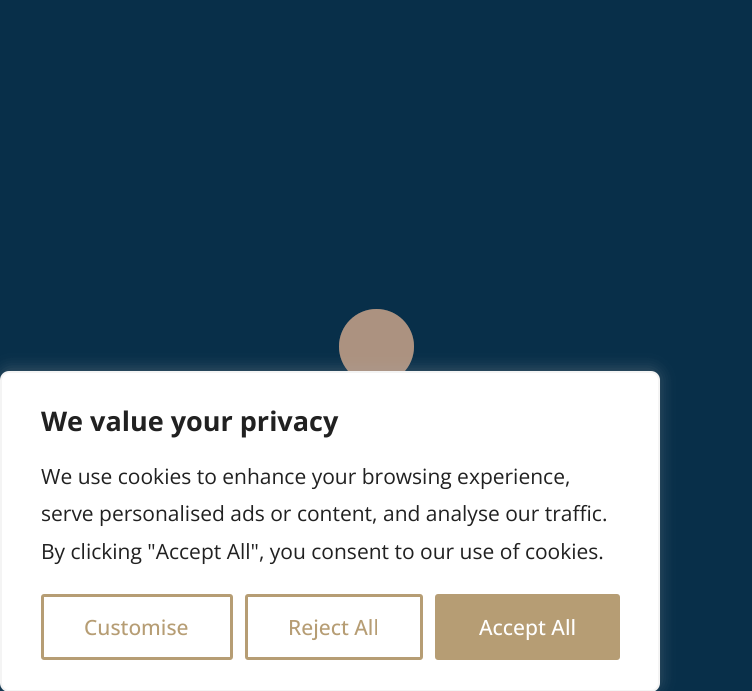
#include <cairo.h>
#include <math.h>
#include <stddef.h>

typedef struct { const char *family; double size; int italic, bold; unsigned color; } style_t;
static cairo_t *ctx;

static void ink(unsigned color) {
    cairo_set_source_rgb(ctx, (color >> 16) / 255.0, (color >> 8 & 255) / 255.0, (color & 255) / 255.0);
}

static void write(double x, double y, const char *s, const style_t *st) {
    cairo_select_font_face(ctx, st->family, st->italic ? CAIRO_FONT_SLANT_ITALIC : CAIRO_FONT_SLANT_NORMAL,
        st->bold ? CAIRO_FONT_WEIGHT_BOLD : CAIRO_FONT_WEIGHT_NORMAL);
    cairo_set_font_size(ctx, st->size);
    ink(st->color);
    cairo_move_to(ctx, x, y);
    cairo_show_text(ctx, s);
}

static void round_path(double x, double y, double w, double h, double r) {
    cairo_new_sub_path(ctx);
    cairo_arc(ctx, x + w - r, y + h - r, r, 0, M_PI / 2);
    cairo_arc(ctx, x + r, y + h - r, r, M_PI / 2, M_PI);
    cairo_arc(ctx, x + r, y + r, r, M_PI, 1.5 * M_PI);
    cairo_arc(ctx, x + w - r, y + r, r, 1.5 * M_PI, 2 * M_PI);
    cairo_close_path(ctx);
}

static void blur_box(double x, double y, double w, double h, double r, double blur, double alpha) {
    cairo_push_group_with_content(ctx, CAIRO_CONTENT_ALPHA);
    cairo_set_operator(ctx, CAIRO_OPERATOR_SOURCE);
    for (int i = 15; i >= -15 && fmin(w, h) + blur * i / 3 > 0; i -= 2) {
        double e = blur * i / 6;
        cairo_set_source_rgba(ctx, 0, 0, 0, alpha * erfc((i - 1) / 8.5) / 2);
        round_path(x - e, y - e, w + 2 * e, h + 2 * e, fmax(0, fmin(r + e + blur * .6, fmin(w, h) / 2 + e)));
        cairo_fill(ctx);
    }
    cairo_pattern_t *soft = cairo_pop_group(ctx);
    cairo_mask(ctx, soft);
    cairo_pattern_destroy(soft);
}

static const style_t s1 = {"Open Sans", 27, 0, 1, 0x212121};
static const style_t s2 = {"Open Sans", 21, 0, 0, 0x212121};
static const style_t s3 = {"Open Sans Medium", 21, 0, 0, 0xb69d74};
static const style_t s4 = {"Open Sans Medium", 21, 0, 0, 0xffffff};

int main(void) {
    cairo_surface_t *surface = cairo_image_surface_create(CAIRO_FORMAT_RGB24, 752, 691);
    ctx = cairo_create(surface);
    cairo_font_options_t *options = cairo_font_options_create();
    cairo_font_options_set_hint_metrics(options, CAIRO_HINT_METRICS_OFF);
    cairo_font_options_set_hint_style(options, CAIRO_HINT_STYLE_NONE);
    cairo_set_font_options(ctx, options);
    cairo_set_miter_limit(ctx, 4);
    ink(0x082f49);
    cairo_paint(ctx);
    ink(0x7e7671);
    cairo_arc(ctx, 376.5, 346.5, 37.5, 0, 2 * M_PI);
    cairo_fill(ctx);
    cairo_set_source_rgba(ctx, 0.8, 0.651, 0.545, 0.6);
    cairo_arc(ctx, 376.5, 346.5, 37.5, 0, 2 * M_PI);
    cairo_fill(ctx);
    ink(0xacabab);
    blur_box(0, 369, 660, 321, 9, 7.5, 0.3);
    ink(0xffffff);
    round_path(1, 372, 658, 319, 8);
    cairo_fill_preserve(ctx);
    ink(0xf4f4f4);
    cairo_stroke(ctx);
    write(41, 431, "We value your privacy", &s1);
    write(41, 484, "We use cookies to enhance your browsing experience,", &s2);
    write(41, 521, "serve personalised ads or content, and analyse our traffic.", &s2);
    write(41, 559, "By clicking \"Accept All\", you consent to our use of cookies.", &s2);
    round_path(42.5, 595.5, 189, 63, 1.5);
    ink(0xb69d74);
    cairo_set_line_width(ctx, 3);
    cairo_stroke(ctx);
    write(84, 635, "Customise", &s3);
    round_path(246.5, 595.5, 175, 63, 1.5);
    cairo_stroke(ctx);
    write(288, 635, "Reject All", &s3);
    round_path(436.5, 595.5, 182, 63, 1.5);
    cairo_fill_preserve(ctx);
    cairo_stroke(ctx);
    write(479, 635, "Accept All", &s4);
    cairo_surface_write_to_png(surface, "screenshot.png");
    cairo_font_options_destroy(options);
    cairo_destroy(ctx);
    cairo_surface_destroy(surface);
    return 0;
}
